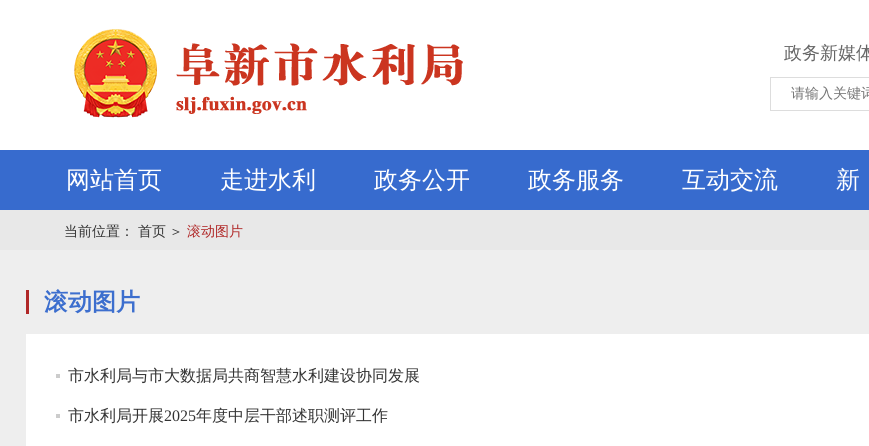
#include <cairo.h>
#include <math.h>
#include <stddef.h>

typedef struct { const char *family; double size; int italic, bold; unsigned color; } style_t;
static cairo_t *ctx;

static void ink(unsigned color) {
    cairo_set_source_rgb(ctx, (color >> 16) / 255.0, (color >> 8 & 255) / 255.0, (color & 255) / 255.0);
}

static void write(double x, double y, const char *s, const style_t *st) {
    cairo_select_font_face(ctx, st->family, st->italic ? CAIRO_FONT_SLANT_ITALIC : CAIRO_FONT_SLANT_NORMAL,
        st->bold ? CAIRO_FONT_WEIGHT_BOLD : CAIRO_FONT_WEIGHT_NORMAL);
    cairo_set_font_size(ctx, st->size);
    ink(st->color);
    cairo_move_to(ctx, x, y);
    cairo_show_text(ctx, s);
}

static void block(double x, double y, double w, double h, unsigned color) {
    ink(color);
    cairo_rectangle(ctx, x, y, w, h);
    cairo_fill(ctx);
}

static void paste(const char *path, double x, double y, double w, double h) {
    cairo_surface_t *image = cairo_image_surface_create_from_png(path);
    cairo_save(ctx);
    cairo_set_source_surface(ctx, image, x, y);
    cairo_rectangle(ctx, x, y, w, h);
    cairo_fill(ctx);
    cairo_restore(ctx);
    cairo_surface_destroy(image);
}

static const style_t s1 = {"WenQuanYi Zen Hei Medium", 18, 0, 0, 0x666666};
static const style_t s2 = {"WenQuanYi Zen Hei Medium", 14, 0, 0, 0x757575};
static const style_t s3 = {"WenQuanYi Zen Hei Medium", 24, 0, 0, 0xffffff};
static const style_t s4 = {"WenQuanYi Zen Hei Medium", 14, 0, 0, 0x333333};
static const style_t s5 = {"WenQuanYi Zen Hei Medium", 14, 0, 0, 0xb02727};
static const style_t s6 = {"WenQuanYi Zen Hei", 24, 0, 1, 0x3c6ece};
static const style_t s7 = {"WenQuanYi Zen Hei Medium", 16, 0, 0, 0x333333};
static const style_t s8 = {"Liberation Serif", 16, 0, 0, 0x333333};

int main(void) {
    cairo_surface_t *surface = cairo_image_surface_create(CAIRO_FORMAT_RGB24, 869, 446);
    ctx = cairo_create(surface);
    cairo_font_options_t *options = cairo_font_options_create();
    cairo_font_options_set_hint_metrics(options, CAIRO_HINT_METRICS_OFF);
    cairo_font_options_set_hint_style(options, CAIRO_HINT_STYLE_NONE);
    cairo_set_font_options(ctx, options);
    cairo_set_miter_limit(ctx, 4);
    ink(0xffffff);
    cairo_paint(ctx);
    paste("pic1.png", 74, 29, 389, 89);
    write(784, 59, "政务新媒体", &s1);
    cairo_rectangle(ctx, 770.5, 77.5, 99, 33);
    ink(0xdddddd);
    cairo_set_line_width(ctx, 1);
    cairo_stroke(ctx);
    write(791, 98, "请输入关键词", &s2);
    block(0, 150, 869, 60, 0x376bce);
    write(66, 188, "网站首页", &s3);
    write(220, 188, "走进水利", &s3);
    write(374, 188, "政务公开", &s3);
    write(528, 188, "政务服务", &s3);
    write(682, 188, "互动交流", &s3);
    write(836, 188, "新", &s3);
    block(0, 250, 869, 196, 0xeeeeee);
    block(0, 210, 869, 40, 0xe8e8e8);
    write(64, 236, "当前位置：", &s4);
    write(138, 236, "首页", &s4);
    write(169, 236, "＞", &s4);
    write(187, 236, "滚动图片", &s5);
    block(26, 290, 3, 24, 0xb02727);
    write(44, 310, "滚动图片", &s6);
    block(26, 334, 843, 112, 0xffffff);
    block(56, 374, 4, 4, 0xcccccc);
    write(68, 381, "市水利局与市大数据局共商智慧水利建设协同发展", &s7);
    block(56, 414, 4, 4, 0xcccccc);
    write(68, 421, "市水利局开展", &s7);
    write(164, 421, "2025", &s8);
    write(196, 421, "年度中层干部述职测评工作", &s7);
    cairo_surface_write_to_png(surface, "screenshot.png");
    cairo_font_options_destroy(options);
    cairo_destroy(ctx);
    cairo_surface_destroy(surface);
    return 0;
}
